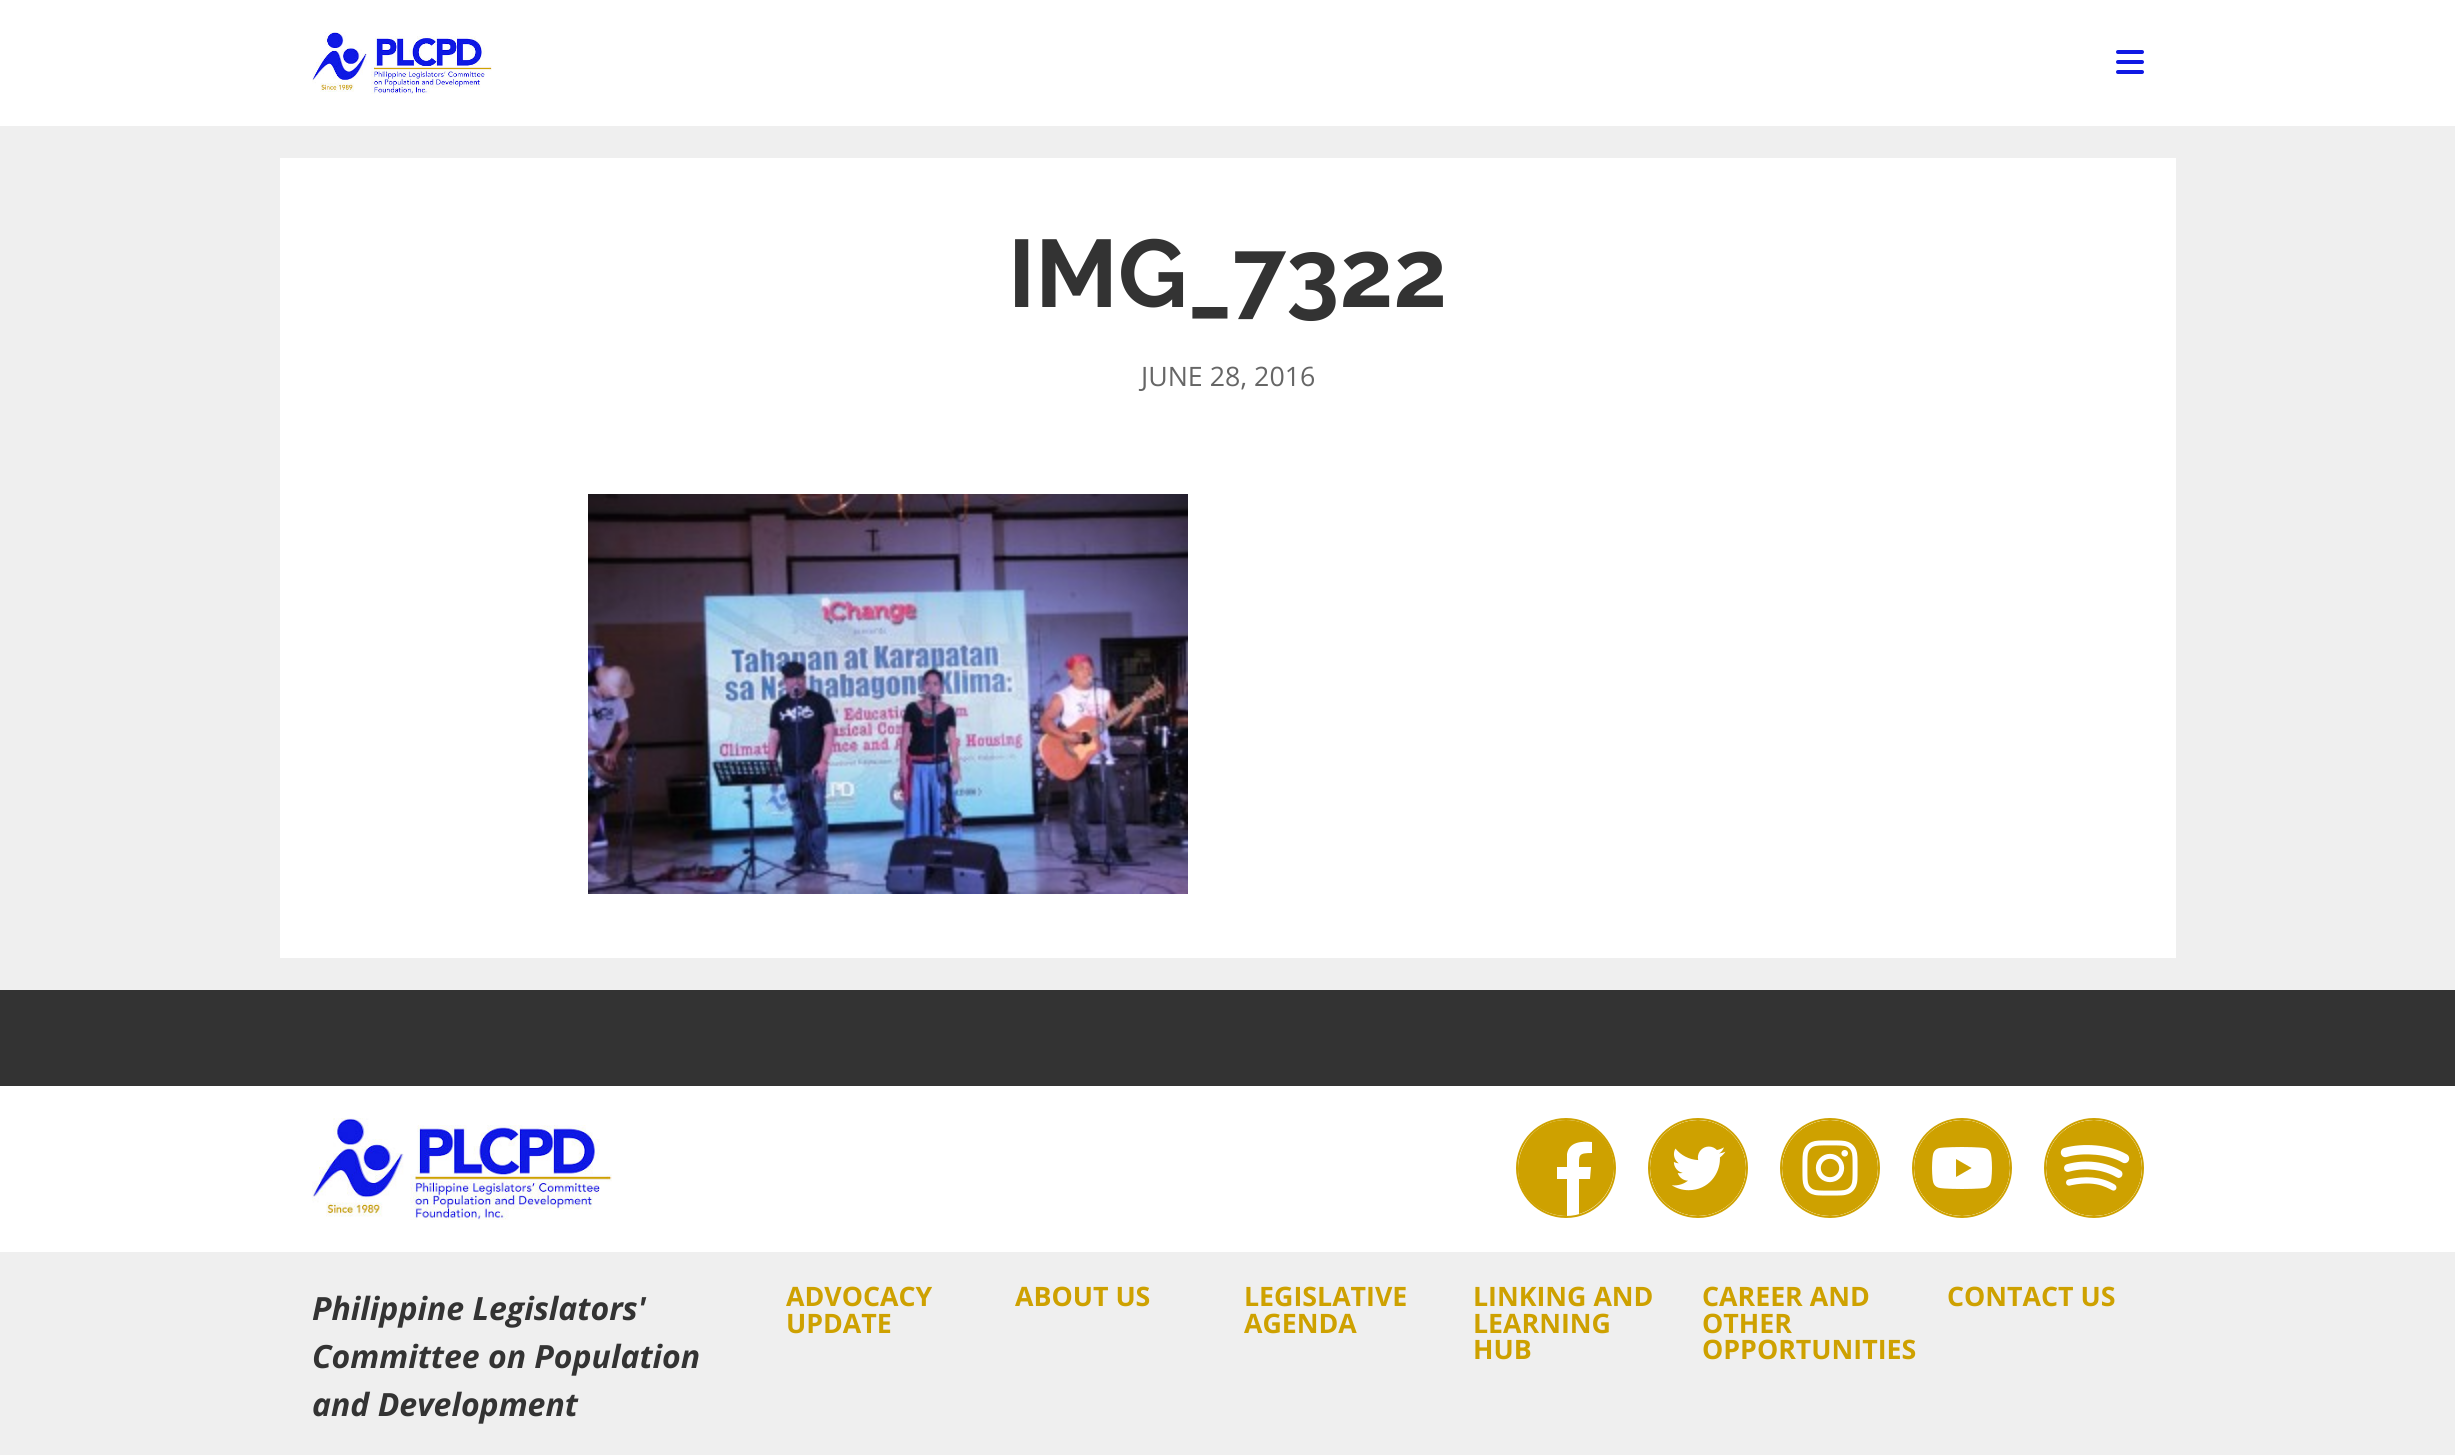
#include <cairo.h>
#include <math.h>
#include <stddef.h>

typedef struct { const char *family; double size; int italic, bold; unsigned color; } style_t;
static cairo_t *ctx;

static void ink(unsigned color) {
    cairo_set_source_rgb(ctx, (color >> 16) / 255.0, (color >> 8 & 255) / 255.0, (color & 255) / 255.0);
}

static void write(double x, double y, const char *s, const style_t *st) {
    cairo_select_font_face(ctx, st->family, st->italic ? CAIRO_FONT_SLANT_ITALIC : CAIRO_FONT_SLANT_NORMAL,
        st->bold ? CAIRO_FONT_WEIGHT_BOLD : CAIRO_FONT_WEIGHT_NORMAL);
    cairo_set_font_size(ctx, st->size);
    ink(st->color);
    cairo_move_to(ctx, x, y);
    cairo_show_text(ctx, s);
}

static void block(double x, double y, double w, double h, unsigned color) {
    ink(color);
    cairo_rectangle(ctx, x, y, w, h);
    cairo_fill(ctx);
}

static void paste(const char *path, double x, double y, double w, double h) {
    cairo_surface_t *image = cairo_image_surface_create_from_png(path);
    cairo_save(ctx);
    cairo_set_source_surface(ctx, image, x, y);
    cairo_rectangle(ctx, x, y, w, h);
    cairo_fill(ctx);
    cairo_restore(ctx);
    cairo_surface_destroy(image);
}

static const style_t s1 = {"Raleway", 95.5, 0, 1, 0x333333};
static const style_t s2 = {"Open Sans", 26.75, 0, 0, 0x666666};
static const style_t s3 = {"Open Sans", 32, 1, 1, 0x333333};
static const style_t s4 = {"Open Sans", 26.75, 0, 1, 0xcea100};

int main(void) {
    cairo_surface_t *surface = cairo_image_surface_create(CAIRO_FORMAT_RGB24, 2455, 1455);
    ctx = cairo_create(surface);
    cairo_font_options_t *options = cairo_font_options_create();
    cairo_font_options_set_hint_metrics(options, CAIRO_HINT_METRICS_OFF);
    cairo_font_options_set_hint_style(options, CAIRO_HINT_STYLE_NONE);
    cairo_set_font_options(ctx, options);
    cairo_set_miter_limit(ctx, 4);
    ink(0xefefef);
    cairo_paint(ctx);
    block(0, 0, 2455, 126, 0xffffff);
    paste("pic1.png", 312, 32, 180, 62);
    paste("pic2.png", 2116, 50, 28, 24);
    block(280, 158, 1896, 800, 0xffffff);
    write(1008, 307, "IMG_7322", &s1);
    write(1141, 386, "JUNE 28, 2016", &s2);
    paste("pic3.png", 588, 494, 600, 400);
    block(0, 990, 2455, 96, 0x333333);
    block(0, 1086, 2455, 166, 0xffffff);
    paste("pic4.png", 312, 1118, 300, 102);
    cairo_arc(ctx, 1566, 1168, 49, 0, 2 * M_PI);
    ink(0xcea100);
    cairo_stroke(ctx);
    cairo_new_path(ctx);
    cairo_move_to(ctx, 1566, 1120);
    cairo_curve_to(ctx, 1519, 1120, 1500, 1182, 1539, 1208);
    cairo_curve_to(ctx, 1547, 1213, 1557, 1216, 1567, 1216);
    cairo_line_to(ctx, 1567, 1179);
    cairo_line_to(ctx, 1557, 1179);
    cairo_line_to(ctx, 1557, 1167);
    cairo_line_to(ctx, 1567, 1167);
    cairo_line_to(ctx, 1567, 1154);
    cairo_curve_to(ctx, 1569, 1142, 1581, 1141, 1592, 1142);
    cairo_line_to(ctx, 1592, 1153);
    cairo_curve_to(ctx, 1578, 1153, 1579, 1155, 1579, 1167);
    cairo_line_to(ctx, 1591, 1167);
    cairo_line_to(ctx, 1590, 1179);
    cairo_line_to(ctx, 1579, 1179);
    cairo_line_to(ctx, 1579, 1214);
    cairo_curve_to(ctx, 1618, 1202, 1627, 1151, 1593, 1128);
    cairo_curve_to(ctx, 1585, 1123, 1576, 1120, 1566, 1120);
    cairo_close_path(ctx);
    cairo_fill(ctx);
    cairo_arc(ctx, 1698, 1168, 49, 0, 2 * M_PI);
    cairo_stroke(ctx);
    paste("pic5.png", 1650, 1120, 96, 96);
    cairo_arc(ctx, 1830, 1168, 49, 0, 2 * M_PI);
    cairo_stroke(ctx);
    paste("pic6.png", 1782, 1120, 96, 96);
    cairo_arc(ctx, 1962, 1168, 49, 0, 2 * M_PI);
    cairo_stroke(ctx);
    paste("pic7.png", 1914, 1120, 96, 96);
    cairo_arc(ctx, 2094, 1168, 49, 0, 2 * M_PI);
    cairo_stroke(ctx);
    paste("pic8.png", 2046, 1120, 96, 96);
    write(312, 1320, "Philippine Legislators'", &s3);
    write(312, 1368, "Committee on Population", &s3);
    write(312, 1416, "and Development", &s3);
    write(786, 1306, "ADVOCACY", &s4);
    write(786, 1333, "UPDATE", &s4);
    write(1015, 1306, "ABOUT US", &s4);
    write(1244, 1306, "LEGISLATIVE", &s4);
    write(1244, 1333, "AGENDA", &s4);
    write(1473, 1306, "LINKING AND", &s4);
    write(1473, 1333, "LEARNING", &s4);
    write(1473, 1359, "HUB", &s4);
    write(1702, 1306, "CAREER AND", &s4);
    write(1702, 1333, "OTHER", &s4);
    write(1702, 1359, "OPPORTUNITIES", &s4);
    write(1947, 1306, "CONTACT US", &s4);
    cairo_surface_write_to_png(surface, "screenshot.png");
    cairo_font_options_destroy(options);
    cairo_destroy(ctx);
    cairo_surface_destroy(surface);
    return 0;
}
